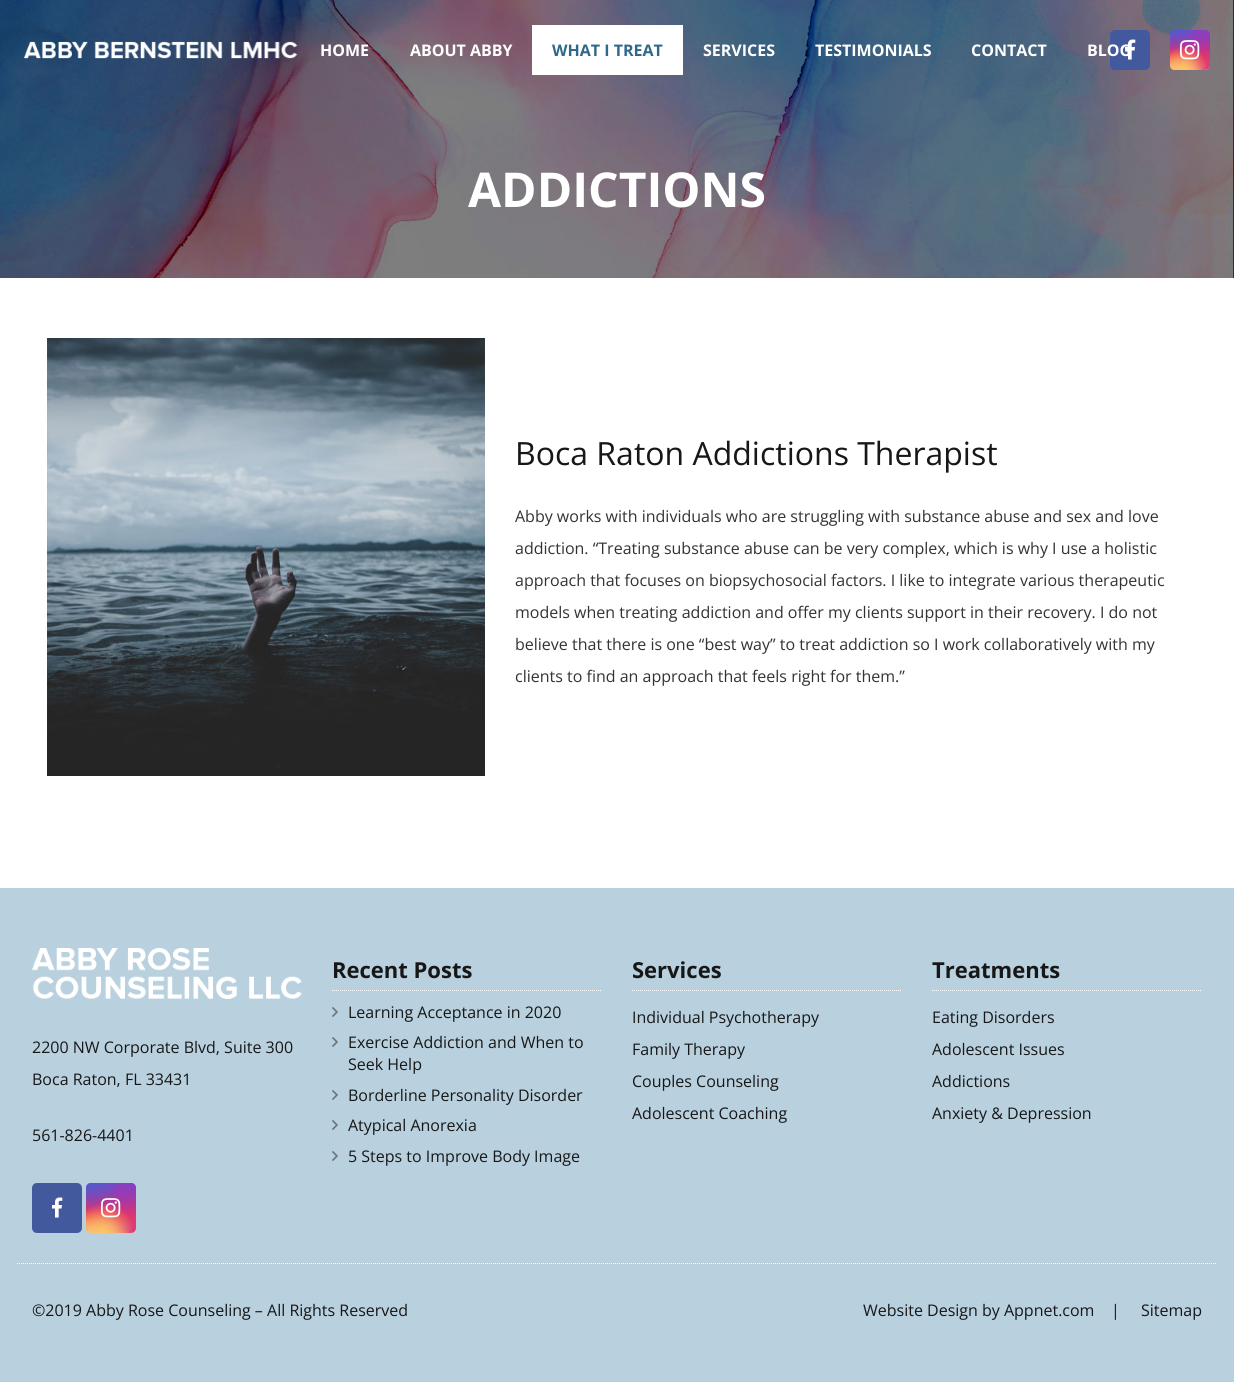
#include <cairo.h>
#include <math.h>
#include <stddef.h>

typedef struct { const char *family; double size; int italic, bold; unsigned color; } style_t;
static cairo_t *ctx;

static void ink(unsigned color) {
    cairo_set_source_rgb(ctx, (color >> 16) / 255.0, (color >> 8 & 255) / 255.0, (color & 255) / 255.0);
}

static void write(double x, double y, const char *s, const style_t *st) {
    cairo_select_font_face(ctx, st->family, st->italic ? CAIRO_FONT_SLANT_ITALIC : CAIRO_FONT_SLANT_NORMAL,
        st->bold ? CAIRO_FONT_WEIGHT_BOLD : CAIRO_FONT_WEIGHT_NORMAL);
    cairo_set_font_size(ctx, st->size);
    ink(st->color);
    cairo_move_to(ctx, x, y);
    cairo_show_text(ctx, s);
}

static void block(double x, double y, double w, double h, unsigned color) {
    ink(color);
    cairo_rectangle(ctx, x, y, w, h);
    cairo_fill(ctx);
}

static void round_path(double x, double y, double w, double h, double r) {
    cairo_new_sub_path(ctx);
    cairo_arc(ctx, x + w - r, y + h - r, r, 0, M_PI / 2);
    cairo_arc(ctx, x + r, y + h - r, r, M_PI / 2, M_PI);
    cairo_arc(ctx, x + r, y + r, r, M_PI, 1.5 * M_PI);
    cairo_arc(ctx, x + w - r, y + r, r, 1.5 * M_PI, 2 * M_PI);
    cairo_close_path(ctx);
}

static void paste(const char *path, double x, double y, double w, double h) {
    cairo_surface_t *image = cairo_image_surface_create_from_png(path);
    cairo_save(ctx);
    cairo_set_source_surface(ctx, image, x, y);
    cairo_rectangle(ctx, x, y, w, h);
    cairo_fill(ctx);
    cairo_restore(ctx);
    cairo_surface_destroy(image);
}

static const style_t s1 = {"Open Sans", 16, 0, 1, 0xffffff};
static const style_t s2 = {"Open Sans", 16, 0, 1, 0x30688b};
static const style_t s3 = {"Open Sans", 48, 0, 1, 0xffffff};
static const style_t s4 = {"Open Sans", 32, 0, 0, 0x171717};
static const style_t s5 = {"Open Sans", 16, 0, 0, 0x333333};
static const style_t s6 = {"Open Sans", 16, 0, 0, 0x171717};
static const style_t s7 = {"Open Sans", 22, 0, 1, 0x171717};

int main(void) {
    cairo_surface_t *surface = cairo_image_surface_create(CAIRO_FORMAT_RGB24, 1234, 1382);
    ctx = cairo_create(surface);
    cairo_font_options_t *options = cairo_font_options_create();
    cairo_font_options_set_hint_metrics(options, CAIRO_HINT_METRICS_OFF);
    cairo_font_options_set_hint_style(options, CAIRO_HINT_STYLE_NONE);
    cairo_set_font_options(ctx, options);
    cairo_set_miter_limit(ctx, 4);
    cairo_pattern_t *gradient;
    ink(0xffffff);
    cairo_paint(ctx);
    paste("pic4.png", 0, 0, 1234, 278);
    paste("pic1.png", 24, 41, 274, 18);
    write(320, 56, "HOME", &s1);
    write(410, 56, "ABOUT ABBY", &s1);
    block(532, 25, 151, 50, 0xffffff);
    write(552, 56, "WHAT I TREAT", &s2);
    write(703, 56, "SERVICES", &s1);
    write(815, 56, "TESTIMONIALS", &s1);
    write(971, 56, "CONTACT", &s1);
    ink(0x42599e);
    round_path(1110, 30, 40, 40, 5);
    cairo_fill(ctx);
    paste("pic2.png", 1125, 39, 11, 21);
    write(1087, 56, "BLOG", &s1);
    gradient = cairo_pattern_create_linear(1190, 30, 1190, 70);
    cairo_pattern_add_color_stop_rgba(gradient, 0, 0.396, 0.349, 0.792, 1);
    cairo_pattern_add_color_stop_rgba(gradient, 0.3, 0.737, 0.192, 0.561, 1);
    cairo_pattern_add_color_stop_rgba(gradient, 0.5, 0.894, 0.18, 0.4, 1);
    cairo_pattern_add_color_stop_rgba(gradient, 0.7, 0.98, 0.325, 0.196, 1);
    cairo_pattern_add_color_stop_rgba(gradient, 1, 1, 0.863, 0.502, 1);
    cairo_set_source(ctx, gradient);
    cairo_pattern_destroy(gradient);
    round_path(1170, 30, 40, 40, 5);
    cairo_fill(ctx);
    gradient = cairo_pattern_create_radial(1210, 70, 0, 1210, 70, 57);
    cairo_pattern_add_color_stop_rgba(gradient, 0, 0.851, 0.192, 0.478, 1);
    cairo_pattern_add_color_stop_rgba(gradient, 1, 0.851, 0.192, 0.478, 0);
    cairo_set_source(ctx, gradient);
    cairo_pattern_destroy(gradient);
    round_path(1170, 30, 40, 40, 5);
    cairo_fill(ctx);
    gradient = cairo_pattern_create_radial(0, 0, 0, 0, 0, 1);
    cairo_pattern_set_matrix(gradient, &(cairo_matrix_t){1.0 / 34, 0, 0, 1.0 / 68, -1.0 * 1194 / 34, -1.0 * 22 / 68});
    cairo_pattern_add_color_stop_rgba(gradient, 0, 0.537, 0.239, 0.761, 1);
    cairo_pattern_add_color_stop_rgba(gradient, 0.5, 0.537, 0.239, 0.761, 0);
    cairo_set_source(ctx, gradient);
    cairo_pattern_destroy(gradient);
    round_path(1170, 30, 40, 40, 5);
    cairo_fill(ctx);
    gradient = cairo_pattern_create_radial(1210, 30, 0, 1210, 30, 57);
    cairo_pattern_add_color_stop_rgba(gradient, 0, 0.537, 0.239, 0.761, 1);
    cairo_pattern_add_color_stop_rgba(gradient, 0.5, 0.537, 0.239, 0.761, 0);
    cairo_set_source(ctx, gradient);
    cairo_pattern_destroy(gradient);
    round_path(1170, 30, 40, 40, 5);
    cairo_fill(ctx);
    gradient = cairo_pattern_create_radial(0, 0, 0, 0, 0, 1);
    cairo_pattern_set_matrix(gradient, &(cairo_matrix_t){1.0 / 45, 0, 0, 1.0 / 85, -1.0 * 1178 / 45, -1.0 * 10 / 85});
    cairo_pattern_add_color_stop_rgba(gradient, 0, 0.322, 0.345, 0.812, 1);
    cairo_pattern_add_color_stop_rgba(gradient, 0.5, 0.322, 0.345, 0.812, 0);
    cairo_set_source(ctx, gradient);
    cairo_pattern_destroy(gradient);
    round_path(1170, 30, 40, 40, 5);
    cairo_fill(ctx);
    gradient = cairo_pattern_create_radial(0, 0, 0, 0, 0, 1);
    cairo_pattern_set_matrix(gradient, &(cairo_matrix_t){1.0 / 57, 0, 0, 1.0 / 71, -1.0 * 1170 / 57, -1.0 * 20 / 71});
    cairo_pattern_add_color_stop_rgba(gradient, 0, 0.322, 0.345, 0.812, 1);
    cairo_pattern_add_color_stop_rgba(gradient, 0.5, 0.322, 0.345, 0.812, 0);
    cairo_set_source(ctx, gradient);
    cairo_pattern_destroy(gradient);
    round_path(1170, 30, 40, 40, 5);
    cairo_fill(ctx);
    gradient = cairo_pattern_create_radial(1174, 86, 0, 1174, 86, 67);
    cairo_pattern_add_color_stop_rgba(gradient, 0, 0.996, 0.855, 0.494, 1);
    cairo_pattern_add_color_stop_rgba(gradient, 0.5, 0.996, 0.855, 0.494, 0);
    cairo_set_source(ctx, gradient);
    cairo_pattern_destroy(gradient);
    round_path(1170, 30, 40, 40, 5);
    cairo_fill(ctx);
    gradient = cairo_pattern_create_radial(1184, 70, 0, 1184, 70, 48);
    cairo_pattern_add_color_stop_rgba(gradient, 0, 0.996, 0.773, 0.392, 1);
    cairo_pattern_add_color_stop_rgba(gradient, 0.5, 0.996, 0.773, 0.392, 0);
    cairo_set_source(ctx, gradient);
    cairo_pattern_destroy(gradient);
    round_path(1170, 30, 40, 40, 5);
    cairo_fill(ctx);
    paste("pic3.png", 1180, 40, 20, 20);
    write(468, 207, "ADDICTIONS", &s3);
    paste("pic5.png", 47, 338, 438, 438);
    write(515, 465, "Boca Raton Addictions Therapist", &s4);
    write(515, 522, "Abby works with individuals who are struggling with substance abuse and sex and love", &s5);
    write(515, 554, "addiction. “Treating substance abuse can be very complex, which is why I use a holistic", &s5);
    write(515, 586, "approach that focuses on biopsychosocial factors. I like to integrate various therapeutic", &s5);
    write(515, 618, "models when treating addiction and offer my clients support in their recovery. I do not", &s5);
    write(515, 650, "believe that there is one “best way” to treat addiction so I work collaboratively with my", &s5);
    write(515, 682, "clients to find an approach that feels right for them.”", &s5);
    block(0, 888, 1234, 494, 0xb9d1df);
    paste("pic6.png", 32, 948, 270, 51);
    write(32, 1053, "2200 NW Corporate Blvd, Suite 300", &s6);
    write(32, 1085, "Boca Raton, FL 33431", &s6);
    write(32, 1141, "561-826-4401", &s6);
    ink(0x42599e);
    round_path(32, 1183, 50, 50, 5);
    cairo_fill(ctx);
    paste("pic2.png", 52, 1197, 11, 21);
    gradient = cairo_pattern_create_linear(111, 1183, 111, 1233);
    cairo_pattern_add_color_stop_rgba(gradient, 0, 0.396, 0.349, 0.792, 1);
    cairo_pattern_add_color_stop_rgba(gradient, 0.3, 0.737, 0.192, 0.561, 1);
    cairo_pattern_add_color_stop_rgba(gradient, 0.5, 0.894, 0.18, 0.4, 1);
    cairo_pattern_add_color_stop_rgba(gradient, 0.7, 0.98, 0.325, 0.196, 1);
    cairo_pattern_add_color_stop_rgba(gradient, 1, 1, 0.863, 0.502, 1);
    cairo_set_source(ctx, gradient);
    cairo_pattern_destroy(gradient);
    round_path(86, 1183, 50, 50, 5);
    cairo_fill(ctx);
    gradient = cairo_pattern_create_radial(136, 1233, 0, 136, 1233, 71);
    cairo_pattern_add_color_stop_rgba(gradient, 0, 0.851, 0.192, 0.478, 1);
    cairo_pattern_add_color_stop_rgba(gradient, 1, 0.851, 0.192, 0.478, 0);
    cairo_set_source(ctx, gradient);
    cairo_pattern_destroy(gradient);
    round_path(86, 1183, 50, 50, 5);
    cairo_fill(ctx);
    gradient = cairo_pattern_create_radial(0, 0, 0, 0, 0, 1);
    cairo_pattern_set_matrix(gradient, &(cairo_matrix_t){1.0 / 42, 0, 0, 1.0 / 85, -1.0 * 116 / 42, -1.0 * 1173 / 85});
    cairo_pattern_add_color_stop_rgba(gradient, 0, 0.537, 0.239, 0.761, 1);
    cairo_pattern_add_color_stop_rgba(gradient, 0.5, 0.537, 0.239, 0.761, 0);
    cairo_set_source(ctx, gradient);
    cairo_pattern_destroy(gradient);
    round_path(86, 1183, 50, 50, 5);
    cairo_fill(ctx);
    gradient = cairo_pattern_create_radial(136, 1183, 0, 136, 1183, 71);
    cairo_pattern_add_color_stop_rgba(gradient, 0, 0.537, 0.239, 0.761, 1);
    cairo_pattern_add_color_stop_rgba(gradient, 0.5, 0.537, 0.239, 0.761, 0);
    cairo_set_source(ctx, gradient);
    cairo_pattern_destroy(gradient);
    round_path(86, 1183, 50, 50, 5);
    cairo_fill(ctx);
    gradient = cairo_pattern_create_radial(0, 0, 0, 0, 0, 1);
    cairo_pattern_set_matrix(gradient, &(cairo_matrix_t){1.0 / 57, 0, 0, 1.0 / 106, -1.0 * 96 / 57, -1.0 * 1158 / 106});
    cairo_pattern_add_color_stop_rgba(gradient, 0, 0.322, 0.345, 0.812, 1);
    cairo_pattern_add_color_stop_rgba(gradient, 0.5, 0.322, 0.345, 0.812, 0);
    cairo_set_source(ctx, gradient);
    cairo_pattern_destroy(gradient);
    round_path(86, 1183, 50, 50, 5);
    cairo_fill(ctx);
    gradient = cairo_pattern_create_radial(0, 0, 0, 0, 0, 1);
    cairo_pattern_set_matrix(gradient, &(cairo_matrix_t){1.0 / 71, 0, 0, 1.0 / 88, -1.0 * 86 / 71, -1.0 * 1171 / 88});
    cairo_pattern_add_color_stop_rgba(gradient, 0, 0.322, 0.345, 0.812, 1);
    cairo_pattern_add_color_stop_rgba(gradient, 0.5, 0.322, 0.345, 0.812, 0);
    cairo_set_source(ctx, gradient);
    cairo_pattern_destroy(gradient);
    round_path(86, 1183, 50, 50, 5);
    cairo_fill(ctx);
    gradient = cairo_pattern_create_radial(91, 1253, 0, 91, 1253, 83);
    cairo_pattern_add_color_stop_rgba(gradient, 0, 0.996, 0.855, 0.494, 1);
    cairo_pattern_add_color_stop_rgba(gradient, 0.5, 0.996, 0.855, 0.494, 0);
    cairo_set_source(ctx, gradient);
    cairo_pattern_destroy(gradient);
    round_path(86, 1183, 50, 50, 5);
    cairo_fill(ctx);
    gradient = cairo_pattern_create_radial(104, 1233, 0, 104, 1233, 60);
    cairo_pattern_add_color_stop_rgba(gradient, 0, 0.996, 0.773, 0.392, 1);
    cairo_pattern_add_color_stop_rgba(gradient, 0.5, 0.996, 0.773, 0.392, 0);
    cairo_set_source(ctx, gradient);
    cairo_pattern_destroy(gradient);
    round_path(86, 1183, 50, 50, 5);
    cairo_fill(ctx);
    paste("pic7.png", 101, 1198, 20, 20);
    cairo_new_path(ctx);
    cairo_move_to(ctx, 332, 990.5);
    cairo_line_to(ctx, 602, 990.5);
    ink(0xffffff);
    cairo_set_line_width(ctx, 1);
    cairo_set_dash(ctx, (double[]){1, 1}, 2, 0);
    cairo_stroke(ctx);
    write(332, 978, "Recent Posts", &s7);
    paste("pic8.png", 332, 1007, 6, 10);
    write(348, 1018, "Learning Acceptance in 2020", &s6);
    paste("pic8.png", 332, 1037, 6, 10);
    write(348, 1048, "Exercise Addiction and When to", &s6);
    write(348, 1070, "Seek Help", &s6);
    paste("pic8.png", 332, 1090, 6, 10);
    write(348, 1101, "Borderline Personality Disorder", &s6);
    paste("pic8.png", 332, 1120, 6, 10);
    write(348, 1131, "Atypical Anorexia", &s6);
    paste("pic8.png", 332, 1151, 6, 10);
    write(348, 1162, "5 Steps to Improve Body Image", &s6);
    cairo_new_path(ctx);
    cairo_move_to(ctx, 632, 990.5);
    cairo_line_to(ctx, 902, 990.5);
    ink(0xffffff);
    cairo_stroke(ctx);
    write(632, 978, "Services", &s7);
    write(632, 1023, "Individual Psychotherapy", &s6);
    write(632, 1055, "Family Therapy", &s6);
    write(632, 1087, "Couples Counseling", &s6);
    write(632, 1119, "Adolescent Coaching", &s6);
    cairo_new_path(ctx);
    cairo_move_to(ctx, 932, 990.5);
    cairo_line_to(ctx, 1202, 990.5);
    ink(0xffffff);
    cairo_stroke(ctx);
    write(932, 978, "Treatments", &s7);
    write(932, 1023, "Eating Disorders", &s6);
    write(932, 1055, "Adolescent Issues", &s6);
    write(932, 1087, "Addictions", &s6);
    write(932, 1119, "Anxiety & Depression", &s6);
    cairo_new_path(ctx);
    cairo_move_to(ctx, 17, 1263.5);
    cairo_line_to(ctx, 1217, 1263.5);
    ink(0xffffff);
    cairo_stroke(ctx);
    write(32, 1316, "©2019 Abby Rose Counseling – All Rights Reserved", &s6);
    write(863, 1316, "Website Design by Appnet.com", &s6);
    write(1111, 1316, "|", &s6);
    write(1141, 1316, "Sitemap", &s6);
    cairo_surface_write_to_png(surface, "screenshot.png");
    cairo_font_options_destroy(options);
    cairo_destroy(ctx);
    cairo_surface_destroy(surface);
    return 0;
}
